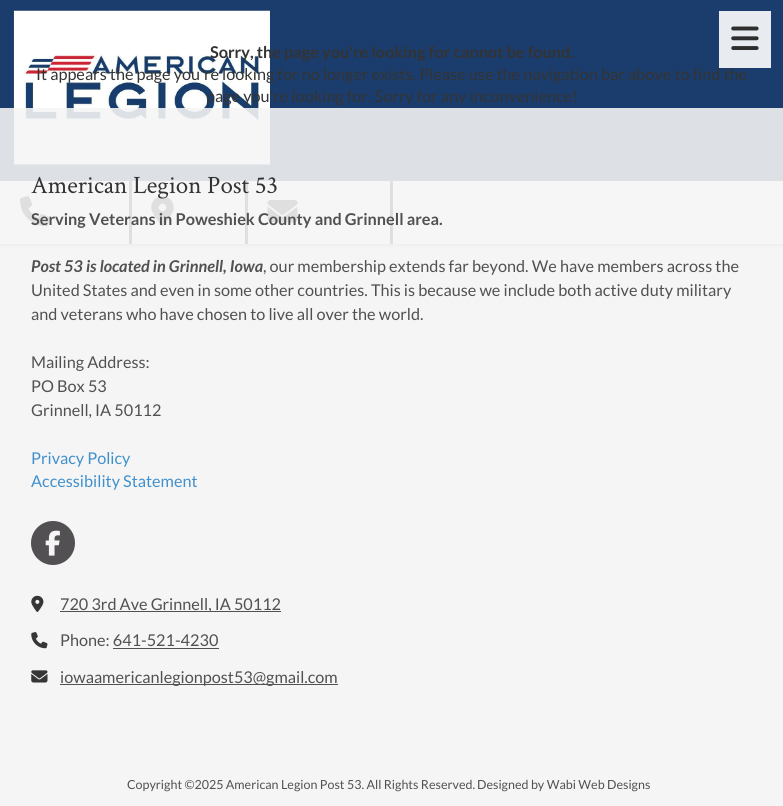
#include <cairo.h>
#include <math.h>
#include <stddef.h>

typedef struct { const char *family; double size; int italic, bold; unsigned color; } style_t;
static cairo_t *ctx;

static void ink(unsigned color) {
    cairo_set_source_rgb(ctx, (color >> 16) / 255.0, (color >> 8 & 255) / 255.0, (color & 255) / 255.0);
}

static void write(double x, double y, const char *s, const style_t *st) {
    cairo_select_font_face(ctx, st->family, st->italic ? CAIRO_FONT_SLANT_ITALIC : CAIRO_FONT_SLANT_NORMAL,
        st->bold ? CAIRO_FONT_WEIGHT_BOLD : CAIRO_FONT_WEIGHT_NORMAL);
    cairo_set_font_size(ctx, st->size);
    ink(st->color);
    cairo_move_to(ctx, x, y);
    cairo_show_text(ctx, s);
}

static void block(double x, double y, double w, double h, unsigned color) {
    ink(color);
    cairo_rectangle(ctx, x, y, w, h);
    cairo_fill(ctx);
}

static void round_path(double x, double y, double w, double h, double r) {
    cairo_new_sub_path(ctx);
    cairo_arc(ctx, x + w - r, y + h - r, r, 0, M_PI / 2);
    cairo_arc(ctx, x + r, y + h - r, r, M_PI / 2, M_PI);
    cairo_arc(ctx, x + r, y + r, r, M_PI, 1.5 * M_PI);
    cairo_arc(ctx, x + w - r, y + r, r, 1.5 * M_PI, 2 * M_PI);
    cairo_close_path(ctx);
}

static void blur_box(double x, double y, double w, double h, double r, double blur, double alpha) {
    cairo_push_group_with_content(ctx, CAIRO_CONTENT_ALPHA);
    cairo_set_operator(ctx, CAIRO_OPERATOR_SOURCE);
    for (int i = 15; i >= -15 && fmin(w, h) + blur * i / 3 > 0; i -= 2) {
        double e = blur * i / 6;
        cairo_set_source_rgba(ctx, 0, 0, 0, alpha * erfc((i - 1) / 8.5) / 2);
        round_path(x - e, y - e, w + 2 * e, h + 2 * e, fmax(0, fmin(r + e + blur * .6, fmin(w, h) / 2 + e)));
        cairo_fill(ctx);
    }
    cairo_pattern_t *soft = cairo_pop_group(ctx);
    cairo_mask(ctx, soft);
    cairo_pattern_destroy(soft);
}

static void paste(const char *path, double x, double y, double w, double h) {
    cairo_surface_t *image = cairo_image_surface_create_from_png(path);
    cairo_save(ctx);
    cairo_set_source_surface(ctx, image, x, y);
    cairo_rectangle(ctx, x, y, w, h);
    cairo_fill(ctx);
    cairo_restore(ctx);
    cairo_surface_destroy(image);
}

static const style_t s1 = {"Lato", 16.25, 0, 1, 0x333333};
static const style_t s2 = {"Lato", 16.25, 0, 0, 0x333333};
static const style_t s3 = {"Crimson Text", 25, 0, 0, 0x333333};
static const style_t s4 = {"Lato", 16.25, 0, 1, 0x525052};
static const style_t s5 = {"Lato", 16.25, 1, 1, 0x525052};
static const style_t s6 = {"Lato", 16.25, 0, 0, 0x525052};
static const style_t s7 = {"Lato", 16.25, 0, 0, 0x4090cd};
static const style_t s8 = {"Lato", 12.5, 0, 0, 0x525052};

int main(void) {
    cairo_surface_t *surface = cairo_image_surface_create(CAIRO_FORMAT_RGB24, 783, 806);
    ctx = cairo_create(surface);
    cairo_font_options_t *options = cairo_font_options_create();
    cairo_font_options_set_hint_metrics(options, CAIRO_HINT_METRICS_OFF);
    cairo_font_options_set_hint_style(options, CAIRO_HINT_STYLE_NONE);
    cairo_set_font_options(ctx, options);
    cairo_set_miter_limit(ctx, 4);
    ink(0xf5f5f5);
    cairo_paint(ctx);
    ink(0x000000);
    blur_box(0, 1, 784, 245, 0, 1, 0.25);
    block(0, 0, 783, 181, 0x1b3d6d);
    paste("pic1.png", 13, 10, 257, 155);
    block(719, 11, 52, 57, 0xe8ecf0);
    paste("pic2.png", 731, 26, 28, 24);
    block(0, 181, 783, 63, 0xffffff);
    block(129, 181, 3, 63, 0x2e2e2e);
    paste("pic3.png", 20, 196, 30, 31);
    block(245, 181, 3, 63, 0x2e2e2e);
    paste("pic4.png", 151, 196, 23, 31);
    block(390, 181, 3, 63, 0x2e2e2e);
    paste("pic5.png", 267, 200, 31, 23);
    write(210, 58, "Sorry, the page you're looking for cannot be found.", &s1);
    write(36, 80, "It appears the page you're looking for no longer exists. Please use the navigation bar above to find the", &s2);
    write(206, 102, "page you're looking for. Sorry for any inconvenience!", &s2);
    cairo_set_source_rgba(ctx, 0.961, 0.961, 0.961, 0.89);
    cairo_rectangle(ctx, 0, 108, 783, 140);
    cairo_fill(ctx);
    write(31, 193, "American Legion Post 53", &s3);
    write(31, 225, "Serving Veterans in Poweshiek County and Grinnell area.", &s4);
    write(31, 272, "Post 53 is located in Grinnell, Iowa", &s5);
    write(263, 272, ", our membership extends far beyond. We have members across the", &s6);
    write(31, 296, "United States and even in some other countries. This is because we include both active duty military", &s6);
    write(31, 320, "and veterans who have chosen to live all over the world.", &s6);
    write(31, 368, "Mailing Address:", &s6);
    write(31, 392, "PO Box 53", &s6);
    write(31, 416, "Grinnell, IA 50112", &s6);
    write(31, 464, "Privacy Policy", &s7);
    write(31, 487, "Accessibility Statement", &s7);
    ink(0x525052);
    cairo_new_path(ctx);
    cairo_arc(ctx, 53, 543, 22, 0, 2 * M_PI);
    cairo_fill(ctx);
    paste("pic6.png", 45, 530, 15, 26);
    paste("pic7.png", 31, 595, 13, 17);
    block(60, 611, 221, 1, 0x525052);
    write(60, 610, "720 3rd Ave Grinnell, IA 50112", &s6);
    paste("pic8.png", 31, 632, 17, 17);
    write(60, 646, "Phone: 641-521-4230", &s6);
    block(113, 648, 106, 1, 0x525052);
    paste("pic9.png", 31, 670, 17, 13);
    block(60, 684, 278, 1, 0x525052);
    write(60, 683, "iowaamericanlegionpost53@gmail.com", &s6);
    write(127, 789, "Copyright ©2025 American Legion Post 53. All Rights Reserved.", &s8);
    write(477, 789, "Designed by Wabi Web Designs", &s8);
    cairo_surface_write_to_png(surface, "screenshot.png");
    cairo_font_options_destroy(options);
    cairo_destroy(ctx);
    cairo_surface_destroy(surface);
    return 0;
}
